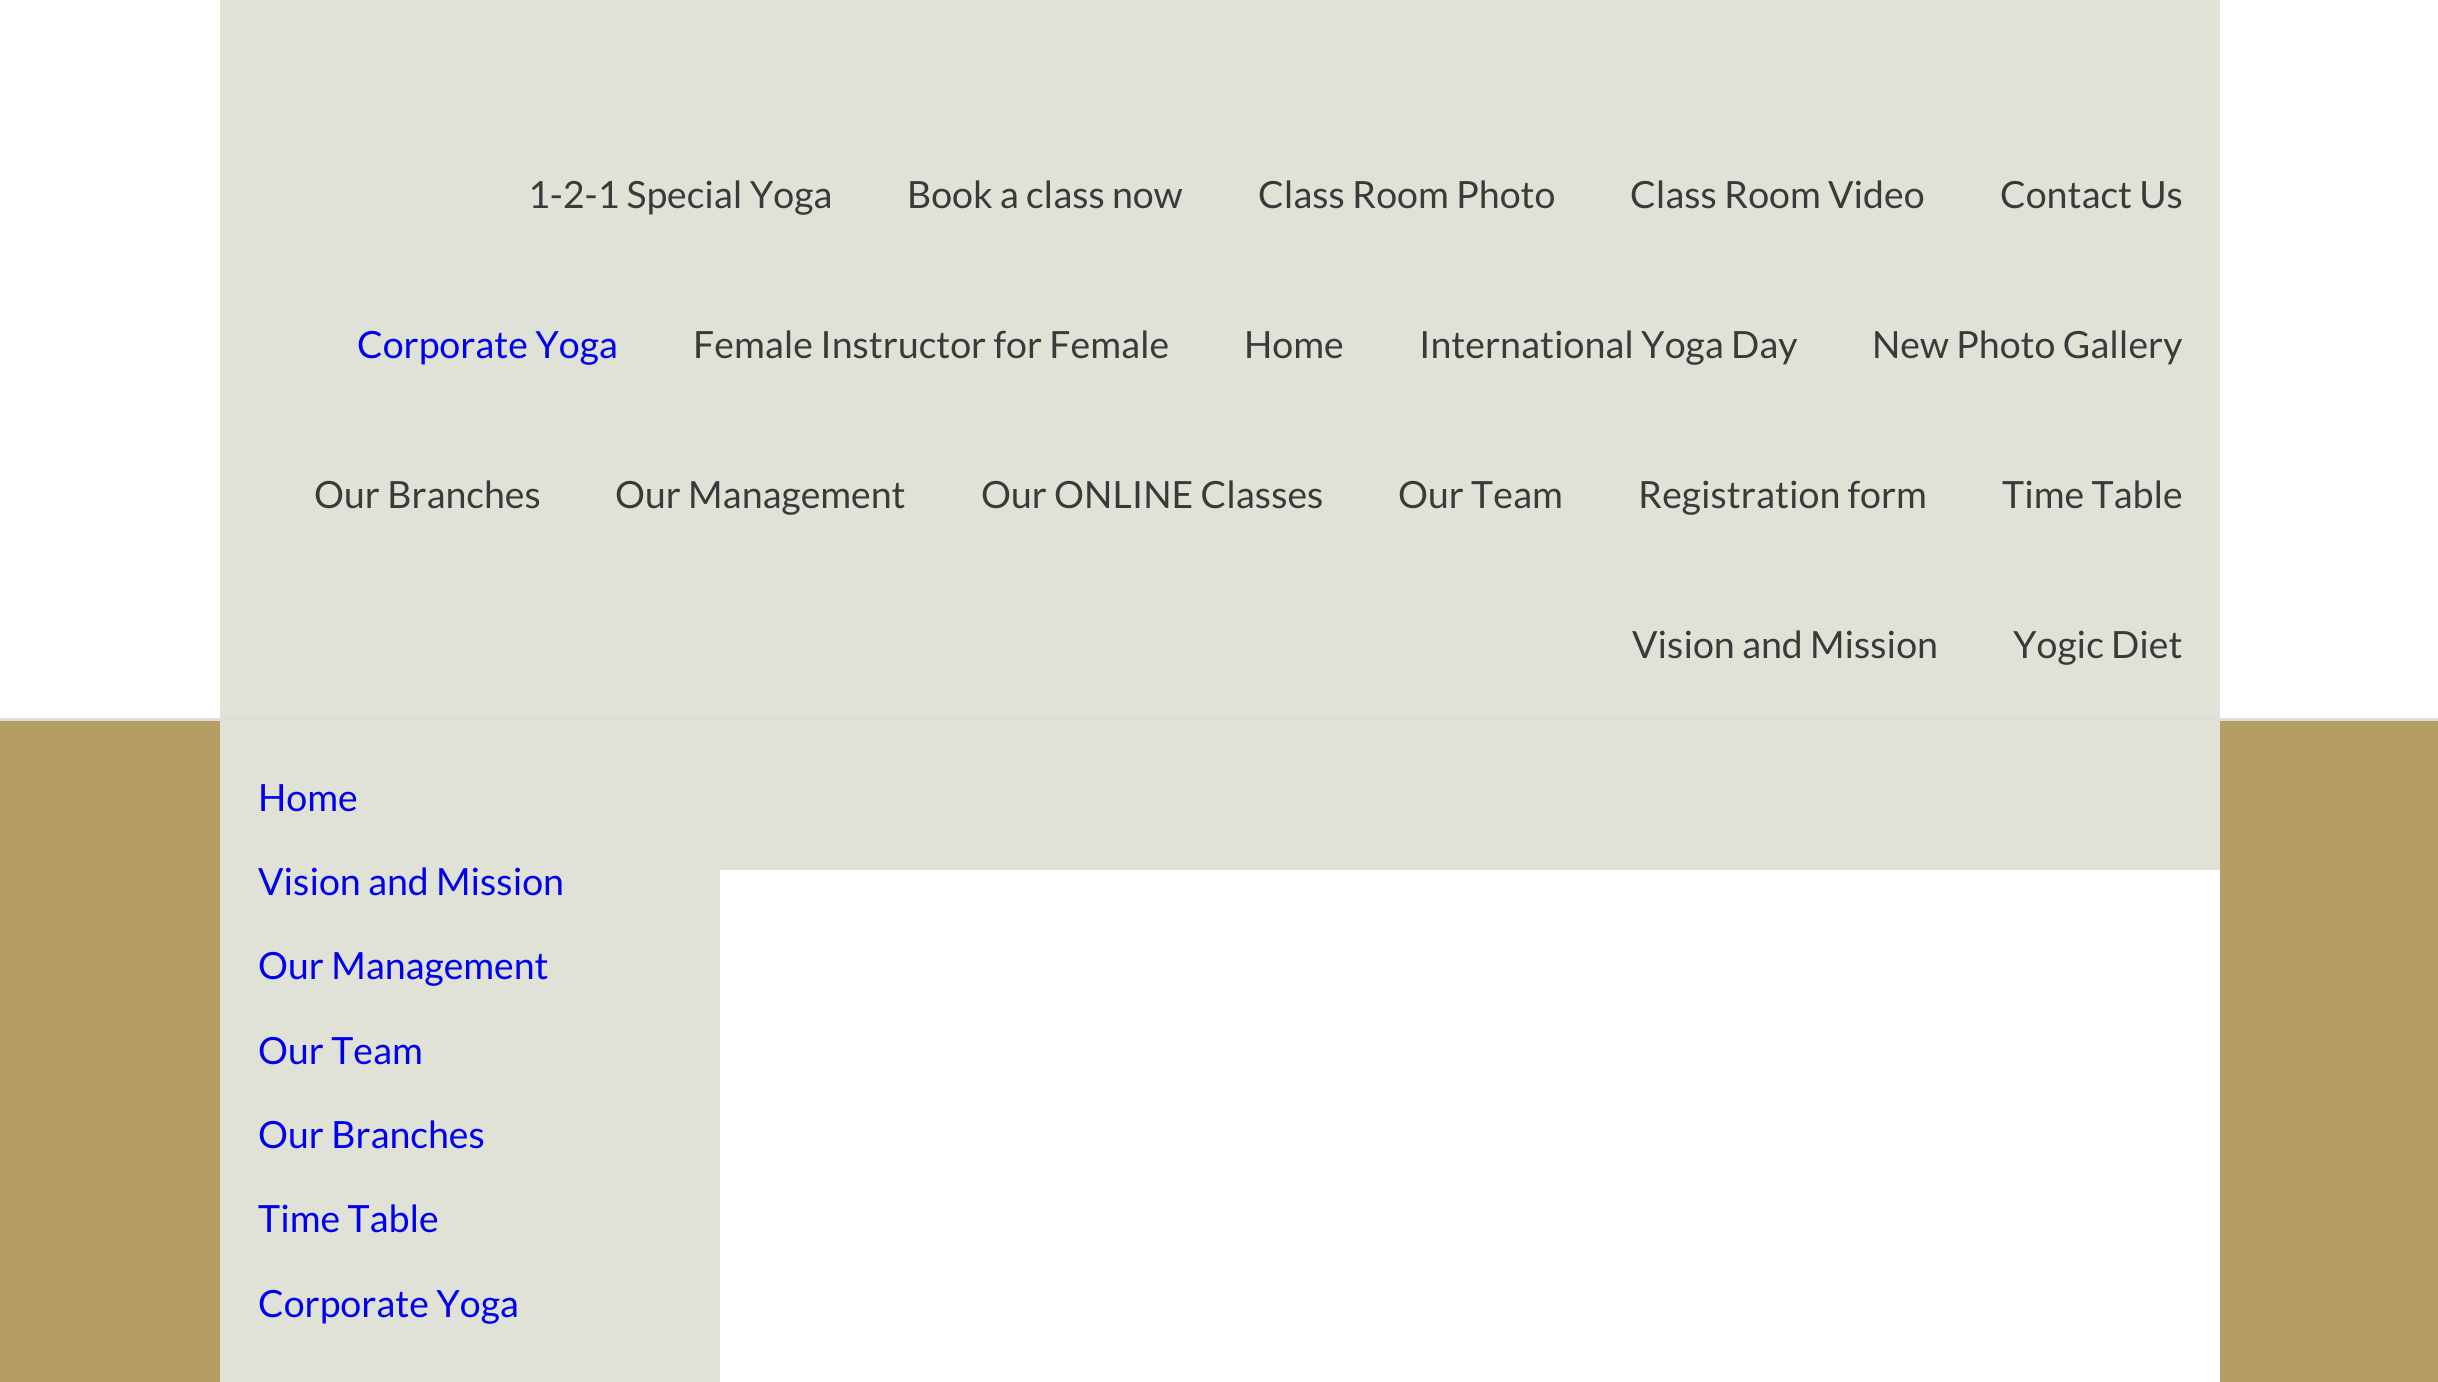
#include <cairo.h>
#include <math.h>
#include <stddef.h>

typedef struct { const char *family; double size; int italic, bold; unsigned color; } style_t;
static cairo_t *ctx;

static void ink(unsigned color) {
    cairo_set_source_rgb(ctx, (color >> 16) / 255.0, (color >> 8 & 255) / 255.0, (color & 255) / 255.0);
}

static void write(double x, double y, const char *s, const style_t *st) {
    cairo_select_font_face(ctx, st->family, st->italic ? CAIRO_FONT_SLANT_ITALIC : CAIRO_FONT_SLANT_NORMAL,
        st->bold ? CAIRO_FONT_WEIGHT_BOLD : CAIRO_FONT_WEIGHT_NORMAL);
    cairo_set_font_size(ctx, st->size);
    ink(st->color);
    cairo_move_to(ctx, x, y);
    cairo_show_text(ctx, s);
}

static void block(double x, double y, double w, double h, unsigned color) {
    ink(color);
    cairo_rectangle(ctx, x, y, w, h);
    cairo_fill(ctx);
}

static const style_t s1 = {"Lato", 37.5, 0, 0, 0x3a3a3a};
static const style_t s2 = {"Lato", 37.5, 0, 0, 0x0000ee};

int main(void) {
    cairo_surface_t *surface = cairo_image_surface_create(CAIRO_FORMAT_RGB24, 2438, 1382);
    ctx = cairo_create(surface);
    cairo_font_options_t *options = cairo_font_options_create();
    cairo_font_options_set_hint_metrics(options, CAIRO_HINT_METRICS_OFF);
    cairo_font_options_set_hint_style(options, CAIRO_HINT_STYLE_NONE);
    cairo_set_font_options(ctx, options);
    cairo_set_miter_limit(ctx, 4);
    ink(0xb59d66);
    cairo_paint(ctx);
    block(0, 0, 2438, 718, 0xffffff);
    block(0, 718, 2438, 3, 0xdddddd);
    block(220, 0, 2000, 718, 0xe0e2d8);
    write(528, 208, "1-2-1 Special Yoga", &s1);
    write(907, 208, "Book a class now", &s1);
    write(1258, 208, "Class Room Photo", &s1);
    write(1630, 208, "Class Room Video", &s1);
    write(2000, 208, "Contact Us", &s1);
    write(357, 358, "Corporate Yoga", &s2);
    write(693, 358, "Female Instructor for Female", &s1);
    write(1244, 358, "Home", &s1);
    write(1419, 358, "International Yoga Day", &s1);
    write(1872, 358, "New Photo Gallery", &s1);
    write(314, 508, "Our Branches", &s1);
    write(615, 508, "Our Management", &s1);
    write(981, 508, "Our ONLINE Classes", &s1);
    write(1398, 508, "Our Team", &s1);
    write(1638, 508, "Registration form", &s1);
    write(2002, 508, "Time Table", &s1);
    write(1632, 658, "Vision and Mission", &s1);
    write(2013, 658, "Yogic Diet", &s1);
    block(220, 721, 2000, 661, 0xe0e2d8);
    write(258, 811, "Home", &s2);
    write(258, 895, "Vision and Mission", &s2);
    write(258, 979, "Our Management", &s2);
    write(258, 1064, "Our Team", &s2);
    write(258, 1148, "Our Branches", &s2);
    write(258, 1232, "Time Table", &s2);
    write(258, 1317, "Corporate Yoga", &s2);
    block(720, 870, 1500, 512, 0xffffff);
    cairo_surface_write_to_png(surface, "screenshot.png");
    cairo_font_options_destroy(options);
    cairo_destroy(ctx);
    cairo_surface_destroy(surface);
    return 0;
}
